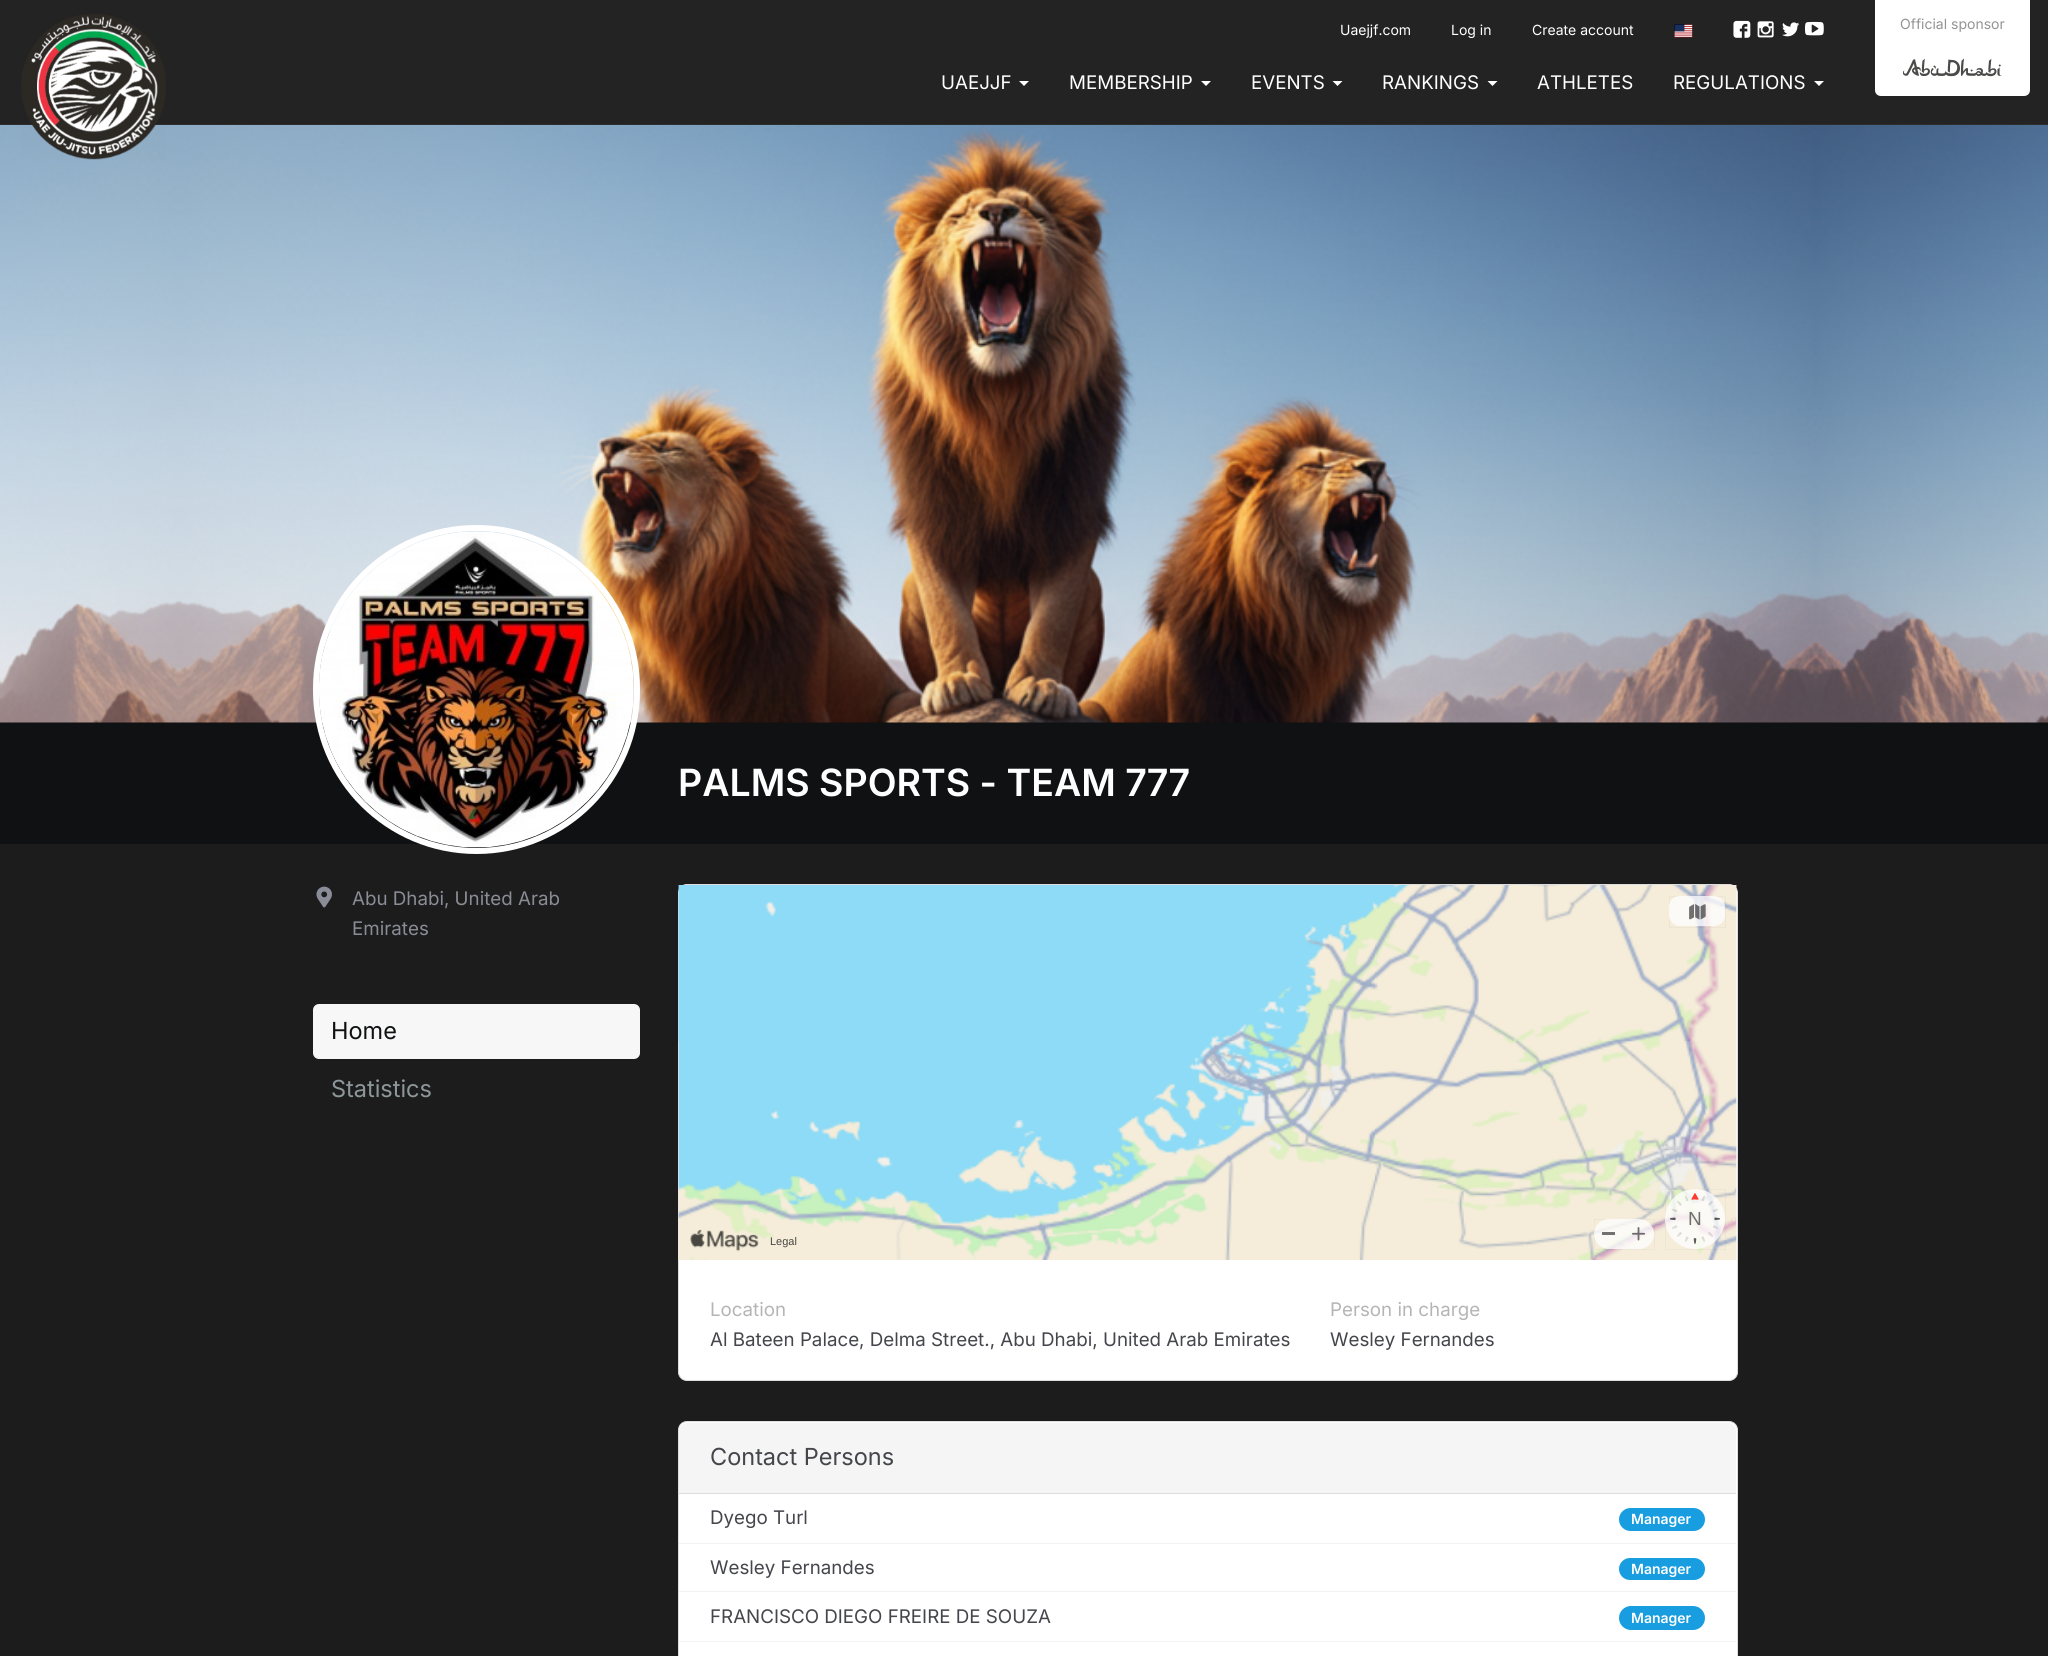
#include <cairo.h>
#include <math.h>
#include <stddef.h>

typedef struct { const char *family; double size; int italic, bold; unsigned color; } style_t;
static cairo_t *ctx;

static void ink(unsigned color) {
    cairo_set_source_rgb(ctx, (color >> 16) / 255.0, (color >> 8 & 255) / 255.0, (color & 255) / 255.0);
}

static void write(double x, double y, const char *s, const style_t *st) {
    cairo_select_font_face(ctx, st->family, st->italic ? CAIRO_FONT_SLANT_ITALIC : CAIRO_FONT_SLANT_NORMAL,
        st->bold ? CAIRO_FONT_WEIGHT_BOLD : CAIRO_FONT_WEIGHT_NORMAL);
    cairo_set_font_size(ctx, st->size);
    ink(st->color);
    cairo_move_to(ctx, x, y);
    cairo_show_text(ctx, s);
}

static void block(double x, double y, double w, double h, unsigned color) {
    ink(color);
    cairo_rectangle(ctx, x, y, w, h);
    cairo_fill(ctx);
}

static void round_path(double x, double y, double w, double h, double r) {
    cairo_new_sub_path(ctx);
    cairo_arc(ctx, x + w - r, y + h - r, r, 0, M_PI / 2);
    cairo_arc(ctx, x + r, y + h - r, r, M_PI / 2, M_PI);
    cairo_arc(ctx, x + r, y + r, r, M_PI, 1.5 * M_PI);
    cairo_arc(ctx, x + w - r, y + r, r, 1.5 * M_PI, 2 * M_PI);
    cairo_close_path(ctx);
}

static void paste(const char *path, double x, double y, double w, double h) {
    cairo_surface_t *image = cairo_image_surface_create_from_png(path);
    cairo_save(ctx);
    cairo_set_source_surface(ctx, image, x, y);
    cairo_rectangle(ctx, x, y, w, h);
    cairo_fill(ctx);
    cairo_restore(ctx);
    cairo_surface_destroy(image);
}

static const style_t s1 = {"Inter", 14, 0, 0, 0xffffff};
static const style_t s2 = {"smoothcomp", 18.75, 0, 0, 0xffffff};
static const style_t s3 = {"Inter", 18.75, 0, 0, 0xffffff};
static const style_t s4 = {"Inter", 14, 0, 0, 0x939393};
static const style_t s5 = {"Inter SemiBold", 37.5, 0, 0, 0xffffff};
static const style_t s6 = {"Inter", 18.75, 0, 0, 0x8a8c96};
static const style_t s7 = {"Inter", 23.5, 0, 0, 0x101112};
static const style_t s8 = {"Inter", 23.5, 0, 0, 0x8d9799};
static const style_t s9 = {"Liberation Sans", 19, 0, 0, 0x6f6e6c};
static const style_t s10 = {"Liberation Sans", 11, 0, 0, 0x494741};
static const style_t s11 = {"Inter", 18.75, 0, 0, 0xb5b5b7};
static const style_t s12 = {"Inter", 18.75, 0, 0, 0x45464c};
static const style_t s13 = {"Inter", 23.5, 0, 0, 0x45464c};
static const style_t s14 = {"Inter SemiBold", 14, 0, 0, 0xffffff};

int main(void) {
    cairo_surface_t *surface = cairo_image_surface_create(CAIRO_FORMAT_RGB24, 2048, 1656);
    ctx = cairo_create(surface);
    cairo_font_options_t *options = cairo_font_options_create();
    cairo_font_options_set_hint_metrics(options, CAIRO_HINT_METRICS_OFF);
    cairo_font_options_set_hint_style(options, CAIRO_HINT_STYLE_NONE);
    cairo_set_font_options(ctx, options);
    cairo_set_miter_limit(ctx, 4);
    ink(0x1c1c1c);
    cairo_paint(ctx);
    block(0, 0, 2048, 124, 0x232323);
    block(0, 124, 2048, 1, 0x2d2d2d);
    block(0, 722, 2048, 122, 0x101112);
    paste("pic7.png", 0, 125, 2048, 598);
    paste("pic1.png", 21, 14, 145, 146);
    write(1340, 35, "Uaejjf.com", &s1);
    write(1451, 35, "Log in", &s1);
    write(1532, 35, "Create account", &s1);
    paste("pic2.png", 1674, 24, 19, 14);
    cairo_rectangle(ctx, 1674.5, 24.5, 18, 13);
    cairo_set_source_rgba(ctx, 0, 0, 0, 0.5);
    cairo_set_line_width(ctx, 1);
    cairo_stroke(ctx);
    paste("pic3.png", 1733, 20, 18, 18);
    paste("pic4.png", 1757, 21, 17, 17);
    paste("pic5.png", 1782, 22, 18, 15);
    write(1805, 38, "#", &s2);
    write(941, 89, "UAEJJF", &s3);
    cairo_new_path(ctx);
    cairo_move_to(ctx, 1019, 81);
    cairo_line_to(ctx, 1029, 81);
    cairo_line_to(ctx, 1024, 86);
    cairo_close_path(ctx);
    cairo_fill(ctx);
    write(1069, 89, "MEMBERSHIP", &s3);
    cairo_new_path(ctx);
    cairo_move_to(ctx, 1201, 81);
    cairo_line_to(ctx, 1211, 81);
    cairo_line_to(ctx, 1206, 86);
    cairo_close_path(ctx);
    cairo_fill(ctx);
    write(1251, 89, "EVENTS", &s3);
    cairo_new_path(ctx);
    cairo_move_to(ctx, 1332.5, 81);
    cairo_line_to(ctx, 1342.5, 81);
    cairo_line_to(ctx, 1337.5, 86);
    cairo_close_path(ctx);
    cairo_fill(ctx);
    write(1382, 89, "RANKINGS", &s3);
    cairo_new_path(ctx);
    cairo_move_to(ctx, 1487.5, 81);
    cairo_line_to(ctx, 1497.5, 81);
    cairo_line_to(ctx, 1492.5, 86);
    cairo_close_path(ctx);
    cairo_fill(ctx);
    write(1537, 89, "ATHLETES", &s3);
    write(1673, 89, "REGULATIONS", &s3);
    cairo_new_path(ctx);
    cairo_move_to(ctx, 1814, 81);
    cairo_line_to(ctx, 1824, 81);
    cairo_line_to(ctx, 1819, 86);
    cairo_close_path(ctx);
    cairo_fill(ctx);
    cairo_new_path(ctx);
    cairo_move_to(ctx, 1875, 0);
    cairo_line_to(ctx, 2030, 0);
    cairo_line_to(ctx, 2030, 90);
    cairo_curve_to(ctx, 2030, 93.5, 2027.5, 96, 2024, 96);
    cairo_line_to(ctx, 1881, 96);
    cairo_curve_to(ctx, 1877.5, 96, 1875, 93.5, 1875, 90);
    cairo_close_path(ctx);
    cairo_fill(ctx);
    write(1900, 29, "Official sponsor", &s4);
    paste("pic6.png", 1903, 58, 99, 19);
    round_path(316, 528, 321, 323, 160.5);
    ink(0xffffff);
    cairo_set_line_width(ctx, 6);
    cairo_stroke(ctx);
    paste("pic8.png", 319, 531, 315, 317);
    write(678, 796, "PALMS SPORTS - TEAM 777", &s5);
    paste("pic9.png", 316, 886, 16, 22);
    write(352, 905, "Abu Dhabi, United Arab", &s6);
    write(352, 935, "Emirates", &s6);
    ink(0xf7f7f8);
    round_path(313, 1004, 327, 55, 6);
    cairo_fill(ctx);
    write(331, 1039, "Home", &s7);
    write(331, 1097, "Statistics", &s8);
    ink(0xffffff);
    round_path(678.5, 884.5, 1059, 496, 8.5);
    cairo_fill_preserve(ctx);
    ink(0xdddddd);
    cairo_set_line_width(ctx, 1);
    cairo_stroke(ctx);
    paste("pic10.png", 678, 885, 1059, 375);
    paste("pic11.png", 678, 885, 1059, 375);
    cairo_rectangle(ctx, 1669.3, 896.3, 56.4, 31.4);
    cairo_set_source_rgba(ctx, 0, 0, 0, 0.05);
    cairo_set_line_width(ctx, 0.6);
    cairo_stroke(ctx);
    cairo_set_source_rgba(ctx, 1, 1, 1, 0.75);
    round_path(1669, 896, 56, 30, 11);
    cairo_fill(ctx);
    paste("pic12.png", 1689, 904, 17, 16);
    cairo_rectangle(ctx, 1594.3, 1219.3, 60.4, 30.4);
    cairo_set_source_rgba(ctx, 0, 0, 0, 0.05);
    cairo_stroke(ctx);
    cairo_set_source_rgba(ctx, 1, 1, 1, 0.75);
    round_path(1594, 1219, 60, 30, 15);
    cairo_fill(ctx);
    block(1602, 1232, 13, 3, 0x72716f);
    paste("pic13.png", 1632, 1227, 14, 14);
    cairo_rectangle(ctx, 1665.3, 1189.3, 60.4, 60.4);
    cairo_set_source_rgba(ctx, 0, 0, 0, 0.05);
    cairo_stroke(ctx);
    cairo_set_source_rgba(ctx, 1, 1, 1, 0.75);
    cairo_arc(ctx, 1695, 1219, 30, 0, 2 * M_PI);
    cairo_fill(ctx);
    paste("pic14.png", 1670, 1193, 50, 51);
    write(1688, 1225, "N", &s9);
    paste("pic15.png", 690, 1229, 69, 23);
    write(770, 1245, "Legal", &s10);
    write(710, 1316, "Location", &s11);
    write(710, 1346, "Al Bateen Palace, Delma Street., Abu Dhabi, United Arab Emirates", &s12);
    write(1330, 1316, "Person in charge", &s11);
    write(1330, 1346, "Wesley Fernandes", &s12);
    ink(0xffffff);
    round_path(678.5, 1421.5, 1059, 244, 8.5);
    cairo_fill_preserve(ctx);
    ink(0xdddddd);
    cairo_set_line_width(ctx, 1);
    cairo_stroke(ctx);
    ink(0xf5f5f5);
    cairo_new_path(ctx);
    cairo_move_to(ctx, 687, 1423);
    cairo_line_to(ctx, 1728, 1423);
    cairo_curve_to(ctx, 1732.5, 1423, 1736, 1426.5, 1736, 1431);
    cairo_line_to(ctx, 1736, 1494);
    cairo_line_to(ctx, 679, 1494);
    cairo_line_to(ctx, 679, 1431);
    cairo_curve_to(ctx, 679, 1426.5, 682.5, 1423, 687, 1423);
    cairo_close_path(ctx);
    cairo_fill(ctx);
    block(679, 1493, 1057, 1, 0xdddddd);
    write(710, 1465, "Contact Persons", &s13);
    write(710, 1524, "Dyego Turl", &s12);
    ink(0x179de0);
    round_path(1619, 1508, 86, 23, 11.5);
    cairo_fill(ctx);
    write(1631, 1524, "Manager", &s14);
    write(710, 1574, "Wesley Fernandes", &s12);
    block(679, 1543, 1057, 1, 0xf2f2f3);
    ink(0x179de0);
    round_path(1619, 1558, 86, 22, 11);
    cairo_fill(ctx);
    write(1631, 1574, "Manager", &s14);
    write(710, 1623, "FRANCISCO DIEGO FREIRE DE SOUZA", &s12);
    block(679, 1591, 1057, 1, 0xf2f2f3);
    ink(0x179de0);
    round_path(1619, 1606, 86, 24, 12);
    cairo_fill(ctx);
    write(1631, 1623, "Manager", &s14);
    block(679, 1641, 1057, 1, 0xf2f2f3);
    cairo_surface_write_to_png(surface, "screenshot.png");
    cairo_font_options_destroy(options);
    cairo_destroy(ctx);
    cairo_surface_destroy(surface);
    return 0;
}
